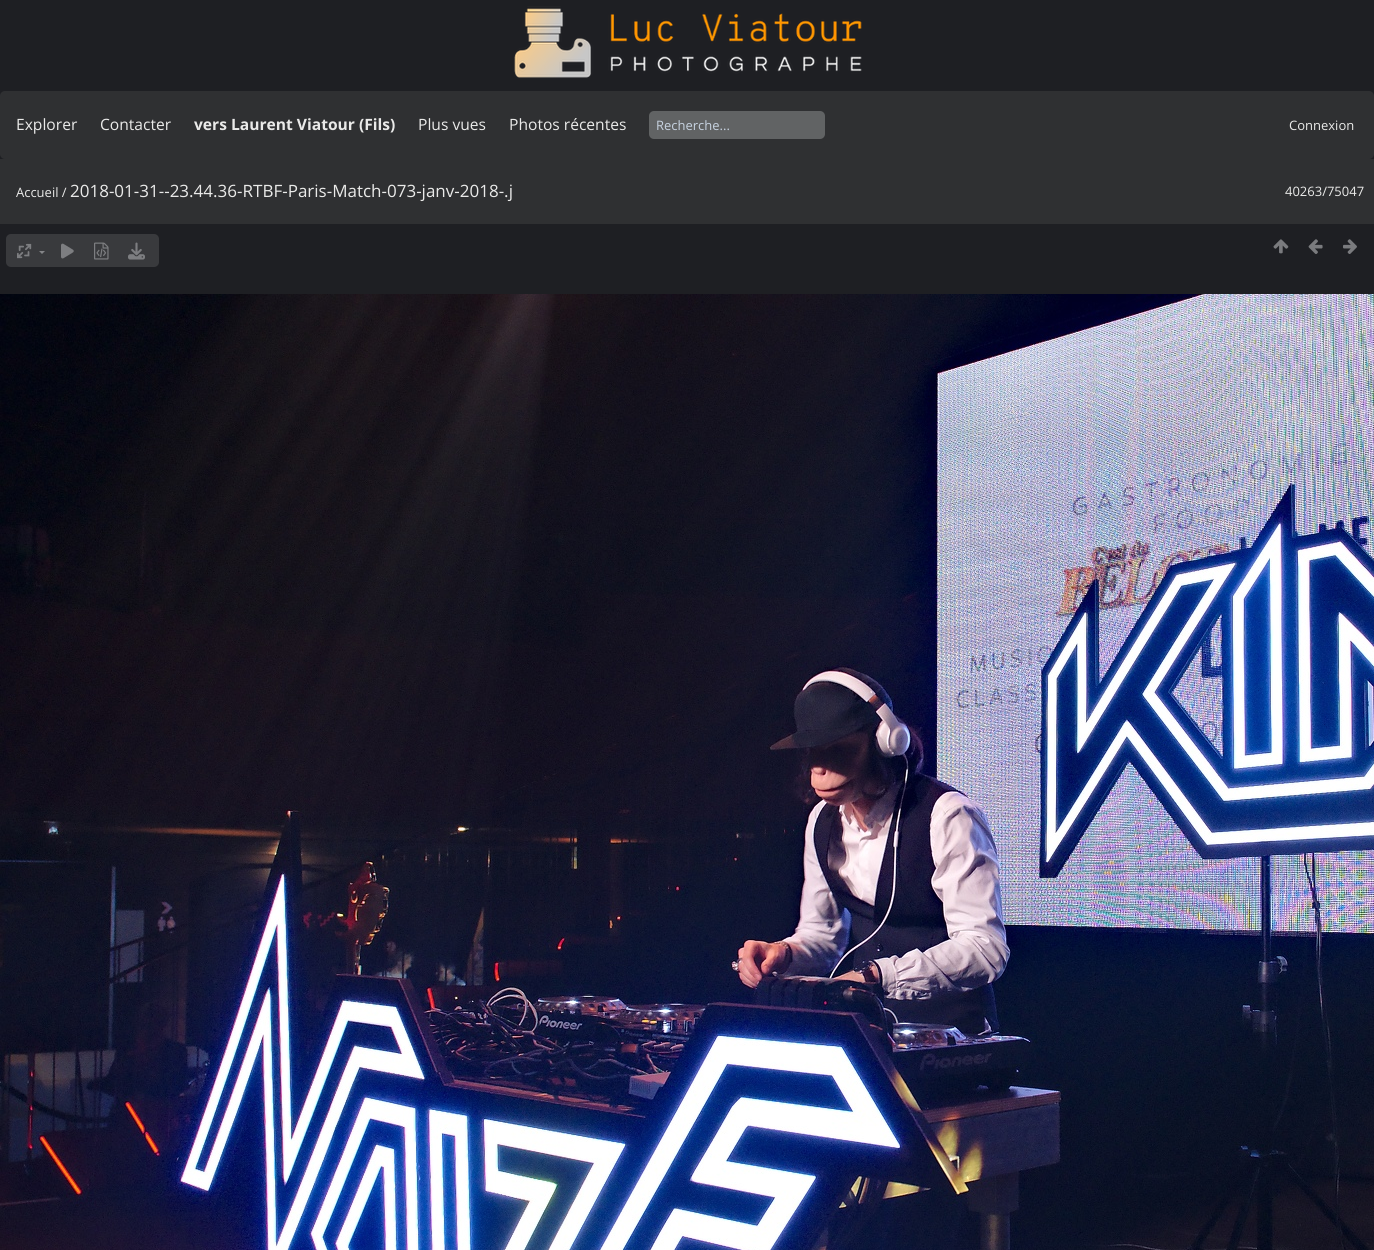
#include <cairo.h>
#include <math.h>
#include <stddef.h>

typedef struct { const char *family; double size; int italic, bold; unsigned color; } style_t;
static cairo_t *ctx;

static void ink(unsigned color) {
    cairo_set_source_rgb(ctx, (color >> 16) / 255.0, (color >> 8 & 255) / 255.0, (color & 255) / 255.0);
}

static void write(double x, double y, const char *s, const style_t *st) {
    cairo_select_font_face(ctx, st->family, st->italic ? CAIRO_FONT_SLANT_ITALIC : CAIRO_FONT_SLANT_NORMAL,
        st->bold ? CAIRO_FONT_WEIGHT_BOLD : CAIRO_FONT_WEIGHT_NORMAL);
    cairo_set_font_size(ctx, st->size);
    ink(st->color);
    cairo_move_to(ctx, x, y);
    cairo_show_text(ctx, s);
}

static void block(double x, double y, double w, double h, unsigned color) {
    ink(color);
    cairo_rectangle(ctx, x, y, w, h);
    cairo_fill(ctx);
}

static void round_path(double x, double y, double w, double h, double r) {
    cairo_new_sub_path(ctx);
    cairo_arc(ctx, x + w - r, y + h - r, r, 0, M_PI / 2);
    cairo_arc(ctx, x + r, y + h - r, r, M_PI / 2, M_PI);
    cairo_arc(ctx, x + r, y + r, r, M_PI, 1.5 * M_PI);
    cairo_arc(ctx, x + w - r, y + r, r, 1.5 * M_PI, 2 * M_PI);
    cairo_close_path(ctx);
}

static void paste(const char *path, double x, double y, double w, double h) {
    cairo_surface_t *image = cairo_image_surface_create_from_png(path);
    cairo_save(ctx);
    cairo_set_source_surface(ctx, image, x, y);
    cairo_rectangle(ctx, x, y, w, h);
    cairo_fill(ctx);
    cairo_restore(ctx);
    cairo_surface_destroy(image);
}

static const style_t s1 = {"Open Sans", 15.6, 0, 0, 0xeaeae9};
static const style_t s2 = {"Open Sans", 15.6, 0, 1, 0xeaeae9};
static const style_t s3 = {"Open Sans", 13, 0, 0, 0xc7d3e1};
static const style_t s4 = {"Open Sans", 13, 0, 0, 0xeaeae9};
static const style_t s5 = {"Open Sans", 17, 0, 0, 0xeaeae9};

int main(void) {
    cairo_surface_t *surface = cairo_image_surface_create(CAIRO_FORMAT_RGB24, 1374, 1250);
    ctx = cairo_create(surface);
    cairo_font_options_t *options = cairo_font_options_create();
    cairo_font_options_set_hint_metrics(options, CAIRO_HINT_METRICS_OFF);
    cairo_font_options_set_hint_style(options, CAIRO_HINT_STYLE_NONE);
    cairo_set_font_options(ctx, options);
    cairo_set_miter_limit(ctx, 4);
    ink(0x1e1f23);
    cairo_paint(ctx);
    paste("pic1.png", 514, 6, 348, 72);
    ink(0x2f3032);
    round_path(0, 91, 1374, 68, 5);
    cairo_fill(ctx);
    write(16, 130, "Explorer", &s1);
    write(100, 130, "Contacter", &s1);
    write(194, 130, "vers Laurent Viatour (Fils)", &s2);
    write(418, 130, "Plus vues", &s1);
    write(509, 130, "Photos récentes", &s1);
    ink(0x616364);
    round_path(649, 111, 176, 28, 5);
    cairo_fill(ctx);
    write(656, 130, "Recherche...", &s3);
    write(1289, 130, "Connexion", &s4);
    block(0, 159, 1374, 65, 0x2f3032);
    write(16, 197, "Accueil /", &s4);
    write(70, 197, "2018-01-31--23.44.36-RTBF-Paris-Match-073-janv-2018-.j", &s5);
    write(1285, 196, "40263/75047", &s4);
    ink(0x393a3d);
    round_path(6, 234, 153, 33, 5);
    cairo_fill(ctx);
    paste("pic2.png", 17, 243, 15, 16);
    ink(0x848588);
    cairo_new_path(ctx);
    cairo_move_to(ctx, 39, 251);
    cairo_line_to(ctx, 45, 251);
    cairo_line_to(ctx, 42, 254);
    cairo_close_path(ctx);
    cairo_fill(ctx);
    paste("pic3.png", 61, 243, 13, 16);
    paste("pic4.png", 94, 242, 15, 18);
    paste("pic5.png", 128, 242, 17, 18);
    paste("pic6.png", 1273, 239, 16, 15);
    paste("pic7.png", 1308, 239, 15, 15);
    paste("pic8.png", 1343, 239, 14, 15);
    paste("pic9.png", 0, 294, 1374, 956);
    cairo_surface_write_to_png(surface, "screenshot.png");
    cairo_font_options_destroy(options);
    cairo_destroy(ctx);
    cairo_surface_destroy(surface);
    return 0;
}
